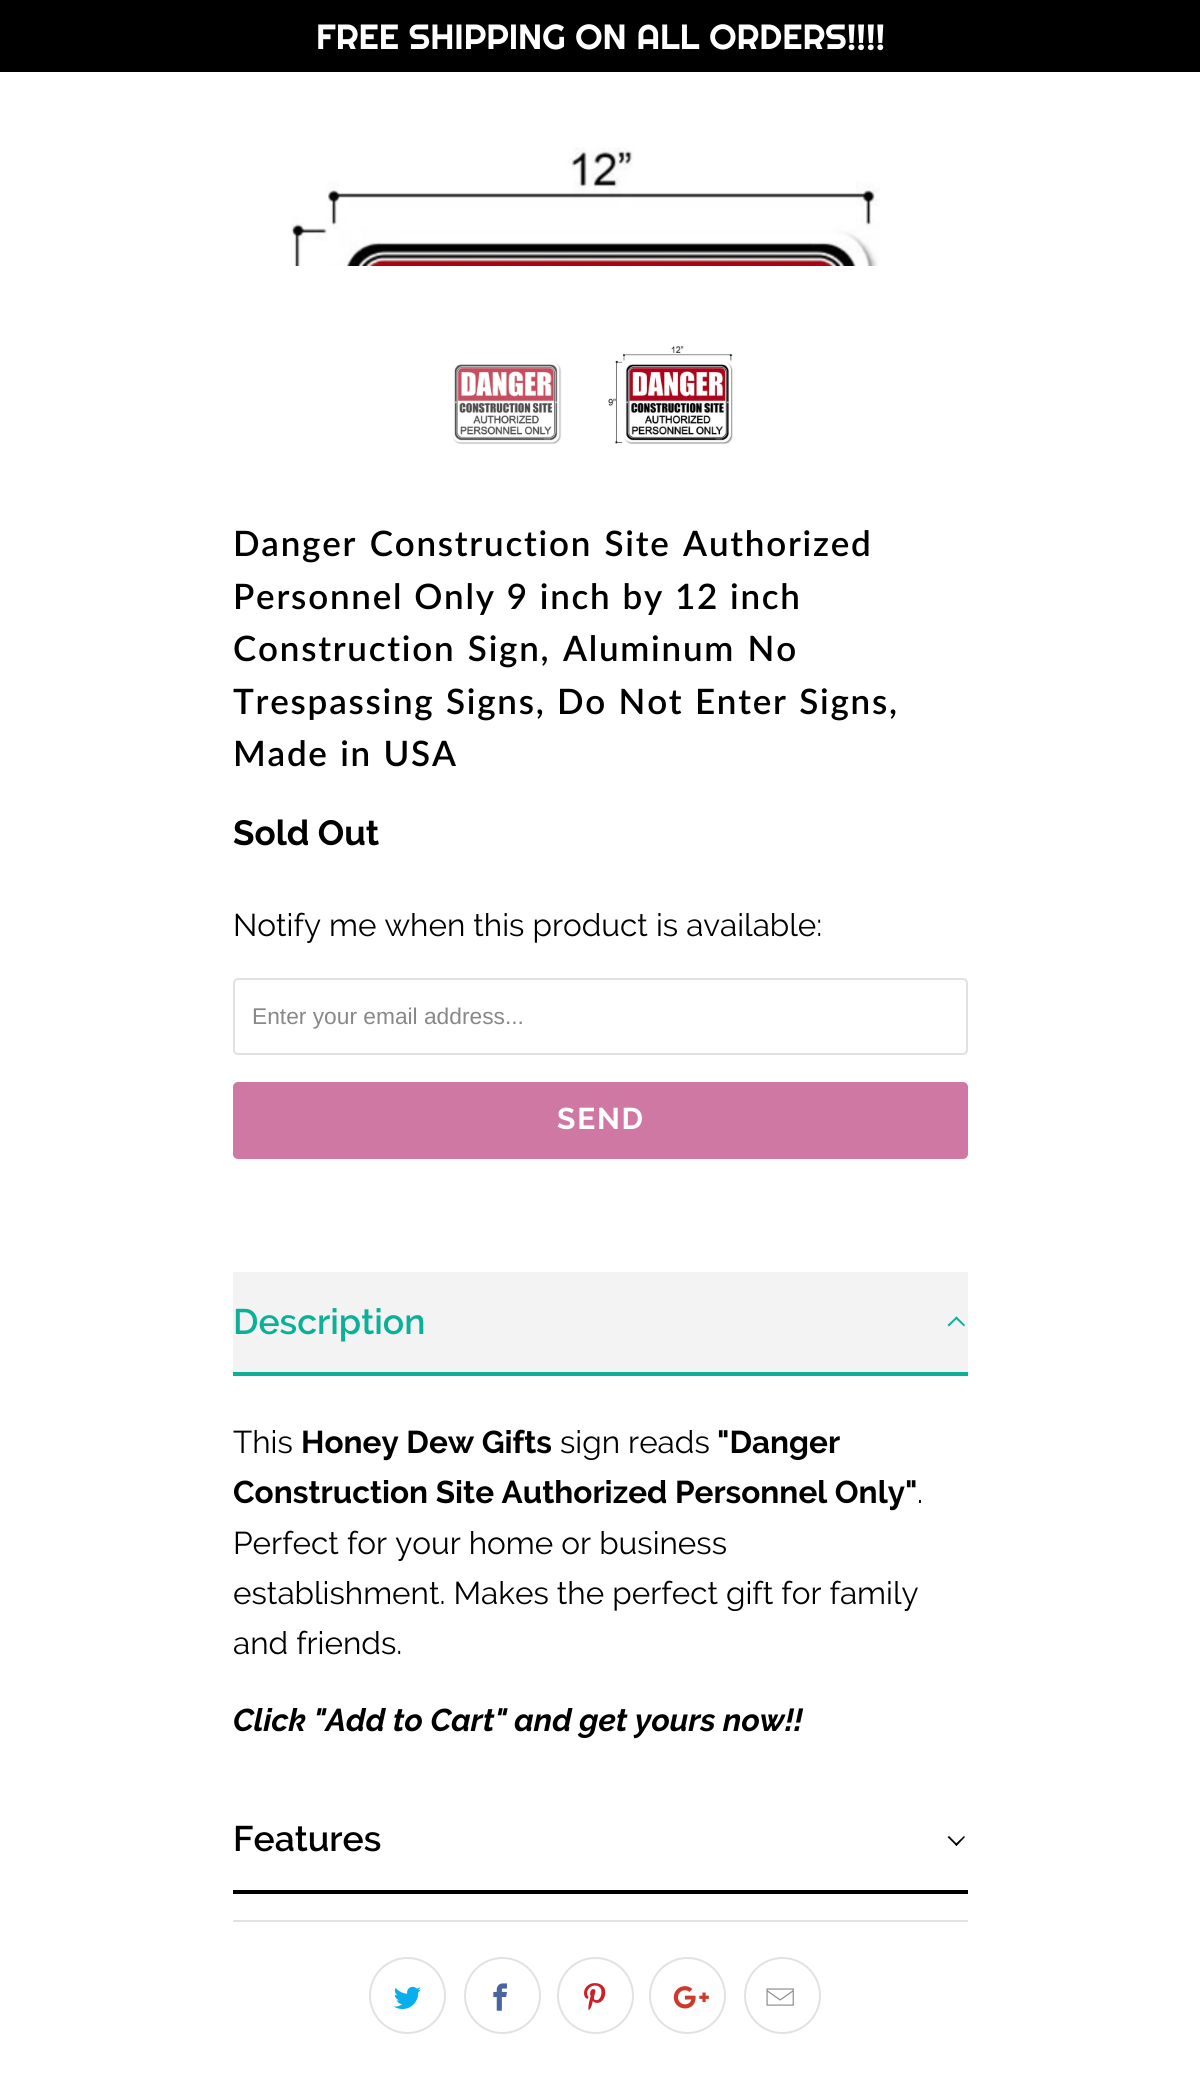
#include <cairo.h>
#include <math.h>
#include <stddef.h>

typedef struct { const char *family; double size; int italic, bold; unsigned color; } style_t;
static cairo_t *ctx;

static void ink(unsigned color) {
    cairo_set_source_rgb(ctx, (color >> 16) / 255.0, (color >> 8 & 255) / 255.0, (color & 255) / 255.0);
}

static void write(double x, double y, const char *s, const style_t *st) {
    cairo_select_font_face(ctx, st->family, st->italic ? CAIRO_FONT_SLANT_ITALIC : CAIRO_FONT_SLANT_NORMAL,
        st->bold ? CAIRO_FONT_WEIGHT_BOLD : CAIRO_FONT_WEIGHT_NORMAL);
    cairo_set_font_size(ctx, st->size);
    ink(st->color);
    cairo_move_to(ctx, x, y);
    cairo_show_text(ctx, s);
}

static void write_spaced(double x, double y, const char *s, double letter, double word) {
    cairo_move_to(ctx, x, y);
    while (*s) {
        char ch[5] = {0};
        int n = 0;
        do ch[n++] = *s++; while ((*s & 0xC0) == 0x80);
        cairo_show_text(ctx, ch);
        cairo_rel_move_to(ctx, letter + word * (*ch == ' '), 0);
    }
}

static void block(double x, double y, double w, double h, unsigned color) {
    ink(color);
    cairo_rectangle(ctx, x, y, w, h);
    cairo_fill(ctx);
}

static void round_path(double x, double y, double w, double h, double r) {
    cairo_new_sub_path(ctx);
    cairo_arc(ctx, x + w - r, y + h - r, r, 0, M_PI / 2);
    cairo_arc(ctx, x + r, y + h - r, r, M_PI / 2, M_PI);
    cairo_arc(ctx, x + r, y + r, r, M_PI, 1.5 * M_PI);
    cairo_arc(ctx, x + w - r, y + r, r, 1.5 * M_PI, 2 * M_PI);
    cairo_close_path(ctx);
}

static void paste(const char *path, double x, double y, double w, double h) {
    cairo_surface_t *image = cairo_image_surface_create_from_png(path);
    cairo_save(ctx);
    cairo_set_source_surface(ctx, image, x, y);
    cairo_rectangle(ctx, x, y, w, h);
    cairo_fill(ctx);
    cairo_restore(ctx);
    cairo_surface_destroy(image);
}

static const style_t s1 = {"Righteous", 35, 0, 0, 0xffffff};
static const style_t s2 = {"Raleway", 35, 0, 1, 0x000000};
static const style_t s3 = {"Raleway", 31.5, 0, 0, 0x000000};
static const style_t s4 = {"Liberation Sans", 22.75, 0, 0, 0x888888};
static const style_t s5 = {"Raleway SemiBold", 35.5, 0, 0, 0x0bb097};
static const style_t s6 = {"Raleway", 31.5, 0, 1, 0x000000};
static const style_t s7 = {"Raleway", 31.5, 1, 1, 0x000000};
static const style_t s8 = {"Raleway SemiBold", 35.5, 0, 0, 0x000000};

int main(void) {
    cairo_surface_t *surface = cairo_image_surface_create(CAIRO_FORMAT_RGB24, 1200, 2087);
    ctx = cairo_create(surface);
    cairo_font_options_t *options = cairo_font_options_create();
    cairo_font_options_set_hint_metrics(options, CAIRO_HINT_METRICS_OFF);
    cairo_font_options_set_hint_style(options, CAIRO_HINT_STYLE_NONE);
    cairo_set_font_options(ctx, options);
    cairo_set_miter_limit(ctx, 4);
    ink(0xffffff);
    cairo_paint(ctx);
    block(0, 0, 1200, 72, 0x000000);
    write(316, 49, "FREE SHIPPING ON ALL ORDERS!!!!", &s1);
    paste("pic1.png", 291, 147, 589, 119);
    paste("pic2.png", 452, 362, 110, 83);
    paste("pic3.png", 608, 346, 125, 99);
    cairo_select_font_face(ctx, "Lato SemiBold", CAIRO_FONT_SLANT_NORMAL, CAIRO_FONT_WEIGHT_NORMAL);
    ink(0x000000);
    write_spaced(233, 556, "Danger Construction Site Authorized", 1.75, 2);
    write_spaced(233, 609, "Personnel Only 9 inch by 12 inch", 1.75, 0.5);
    write_spaced(233, 661, "Construction Sign, Aluminum No", 1.75, 2);
    write_spaced(233, 714, "Trespassing Signs, Do Not Enter Signs,", 1.75, 1);
    write_spaced(233, 766, "Made in USA", 1.75, 1);
    write(233, 845, "Sold Out", &s2);
    write(233, 936, "Notify me when this product is available:", &s3);
    round_path(234, 979, 733, 75, 4);
    ink(0xe3e0e0);
    cairo_stroke(ctx);
    write(252, 1024, "Enter your email address...", &s4);
    ink(0xce78a3);
    round_path(234, 1083, 733, 75, 4);
    cairo_fill_preserve(ctx);
    cairo_stroke(ctx);
    cairo_select_font_face(ctx, "Raleway", CAIRO_FONT_SLANT_NORMAL, CAIRO_FONT_WEIGHT_BOLD);
    cairo_set_font_size(ctx, 30);
    ink(0xffffff);
    write_spaced(557, 1129, "SEND", 1.75, 0);
    block(233, 1272, 735, 100, 0xf3f3f3);
    block(233, 1372, 735, 4, 0x0bb097);
    write(233, 1334, "Description", &s5);
    cairo_new_path(ctx);
    cairo_move_to(ctx, 949, 1326.5);
    cairo_line_to(ctx, 947.5, 1325);
    cairo_line_to(ctx, 956.5, 1316.5);
    cairo_line_to(ctx, 957.5, 1318);
    cairo_close_path(ctx);
    cairo_fill(ctx);
    cairo_new_path(ctx);
    cairo_move_to(ctx, 964, 1326.5);
    cairo_line_to(ctx, 955, 1318);
    cairo_line_to(ctx, 956.5, 1316.5);
    cairo_line_to(ctx, 965, 1325);
    cairo_close_path(ctx);
    cairo_fill(ctx);
    write(233, 1453, "This", &s3);
    write(301, 1453, "Honey Dew Gifts", &s6);
    write(560, 1453, "sign reads", &s3);
    write(717, 1453, "\"Danger", &s6);
    write(233, 1503, "Construction Site Authorized Personnel Only\"", &s6);
    write(917, 1503, ".", &s3);
    write(233, 1554, "Perfect for your home or business", &s3);
    write(233, 1604, "establishment. Makes the perfect gift for family", &s3);
    write(233, 1654, "and friends.", &s3);
    write(233, 1731, "Click \"Add to Cart\" and get yours now!!", &s7);
    block(233, 1890, 735, 4, 0x000000);
    write(233, 1851, "Features", &s8);
    cairo_new_path(ctx);
    cairo_move_to(ctx, 964, 1836);
    cairo_line_to(ctx, 965, 1837);
    cairo_line_to(ctx, 956.5, 1846);
    cairo_line_to(ctx, 955, 1844.5);
    cairo_close_path(ctx);
    cairo_fill(ctx);
    cairo_new_path(ctx);
    cairo_move_to(ctx, 949, 1836);
    cairo_line_to(ctx, 957.5, 1844.5);
    cairo_line_to(ctx, 956.5, 1846);
    cairo_line_to(ctx, 947.5, 1837);
    cairo_close_path(ctx);
    cairo_fill(ctx);
    block(233, 1920, 735, 2, 0xe3e0e0);
    cairo_arc(ctx, 407.5, 1995.5, 37.5, 0, 2 * M_PI);
    ink(0xe2e2e2);
    cairo_stroke(ctx);
    paste("pic4.png", 394, 1986, 27, 23);
    cairo_arc(ctx, 502.5, 1995.5, 37.5, 0, 2 * M_PI);
    cairo_stroke(ctx);
    paste("pic5.png", 493, 1983, 14, 28);
    cairo_arc(ctx, 595.5, 1995.5, 37.5, 0, 2 * M_PI);
    cairo_stroke(ctx);
    paste("pic6.png", 584, 1983, 22, 28);
    cairo_arc(ctx, 687.5, 1995.5, 37.5, 0, 2 * M_PI);
    cairo_stroke(ctx);
    paste("pic7.png", 673, 1986, 36, 23);
    cairo_arc(ctx, 782.5, 1995.5, 37.5, 0, 2 * M_PI);
    cairo_stroke(ctx);
    paste("pic8.png", 766, 1988, 28, 18);
    cairo_surface_write_to_png(surface, "screenshot.png");
    cairo_font_options_destroy(options);
    cairo_destroy(ctx);
    cairo_surface_destroy(surface);
    return 0;
}
